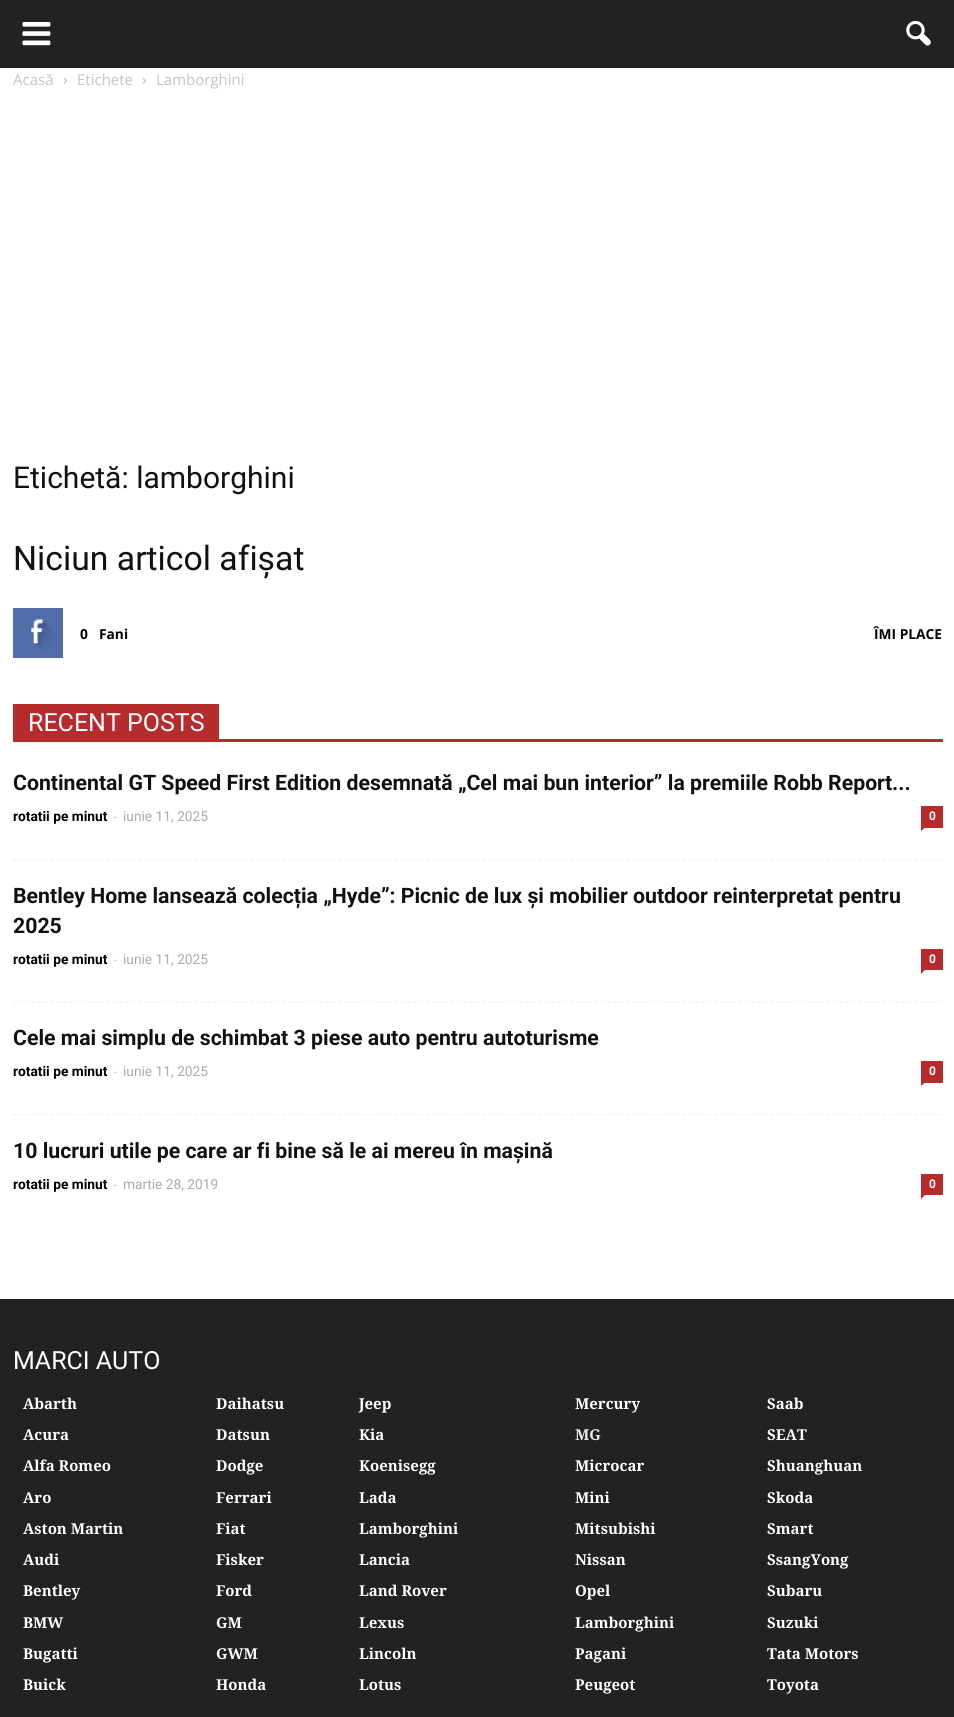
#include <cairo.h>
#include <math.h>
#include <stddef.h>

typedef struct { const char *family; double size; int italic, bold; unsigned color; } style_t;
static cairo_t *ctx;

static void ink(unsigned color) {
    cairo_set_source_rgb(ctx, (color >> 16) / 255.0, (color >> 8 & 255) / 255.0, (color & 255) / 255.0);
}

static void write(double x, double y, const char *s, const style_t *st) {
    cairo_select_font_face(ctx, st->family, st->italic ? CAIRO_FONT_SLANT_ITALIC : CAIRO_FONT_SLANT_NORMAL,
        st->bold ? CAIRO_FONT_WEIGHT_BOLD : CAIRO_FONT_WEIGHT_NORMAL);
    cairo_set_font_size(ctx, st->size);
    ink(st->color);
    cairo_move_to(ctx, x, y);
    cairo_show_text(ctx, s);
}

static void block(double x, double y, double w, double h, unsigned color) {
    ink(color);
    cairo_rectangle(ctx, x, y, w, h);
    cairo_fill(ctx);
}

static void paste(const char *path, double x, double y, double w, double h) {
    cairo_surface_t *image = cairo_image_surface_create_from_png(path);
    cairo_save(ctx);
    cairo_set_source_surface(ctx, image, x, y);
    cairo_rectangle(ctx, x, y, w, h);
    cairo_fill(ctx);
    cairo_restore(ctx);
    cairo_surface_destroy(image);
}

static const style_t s1 = {"Open Sans", 15, 0, 0, 0xc3c3c3};
static const style_t s2 = {"Roboto", 30, 0, 0, 0x111111};
static const style_t s3 = {"Roboto", 33.75, 0, 0, 0x111111};
static const style_t s4 = {"Open Sans", 13.75, 0, 1, 0x000000};
static const style_t s5 = {"Roboto", 25, 0, 0, 0xffffff};
static const style_t s6 = {"Roboto", 21.25, 0, 1, 0x111111};
static const style_t s7 = {"Roboto", 13.75, 0, 1, 0x000000};
static const style_t s8 = {"Open Sans", 13.75, 0, 0, 0xcccccc};
static const style_t s9 = {"Roboto", 13.75, 0, 0, 0xaaaaaa};
static const style_t s10 = {"Roboto", 12, 0, 1, 0xffffff};
static const style_t s11 = {"Droid Serif", 15, 0, 1, 0xffffff};
static const style_t s12 = {"Droid Serif", 15, 0, 1, 0xeaeaea};

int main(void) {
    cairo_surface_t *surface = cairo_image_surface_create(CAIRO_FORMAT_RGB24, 954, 1717);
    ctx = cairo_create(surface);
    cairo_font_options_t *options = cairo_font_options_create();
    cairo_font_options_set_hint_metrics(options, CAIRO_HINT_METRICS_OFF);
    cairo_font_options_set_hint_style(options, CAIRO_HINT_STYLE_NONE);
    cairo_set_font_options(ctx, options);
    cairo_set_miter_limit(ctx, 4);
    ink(0xffffff);
    cairo_paint(ctx);
    block(0, 0, 954, 68, 0x222222);
    paste("pic1.png", 22, 22, 29, 24);
    paste("pic2.png", 906, 20, 25, 26);
    write(13, 85, "Acasă", &s1);
    paste("pic3.png", 63, 77, 4, 7);
    write(77, 85, "Etichete", &s1);
    paste("pic4.png", 142, 78, 4, 6);
    write(156, 85, "Lamborghini", &s1);
    write(13, 488, "Etichetă: lamborghini", &s2);
    write(13, 570, "Niciun articol afișat", &s3);
    block(13, 608, 50, 50, 0x516eab);
    paste("pic5.png", 31, 619, 25, 31);
    write(80, 639, "0", &s4);
    write(99, 639, "Fani", &s4);
    write(874, 639, "ÎMI PLACE", &s4);
    block(13, 739, 930, 3, 0xb62b2b);
    block(13, 704, 206, 35, 0xb62b2b);
    write(28, 731, "RECENT POSTS", &s5);
    cairo_new_path(ctx);
    cairo_move_to(ctx, 12.5, 859.5);
    cairo_line_to(ctx, 942.5, 859.5);
    ink(0xf2f2f2);
    cairo_set_line_width(ctx, 1.2);
    cairo_set_dash(ctx, (double[]){3.75, 2.51}, 2, 0);
    cairo_stroke(ctx);
    write(13, 790, "Continental GT Speed First Edition desemnată „Cel mai bun interior” la premiile Robb Report...", &s6);
    write(13, 821, "rotatii pe minut", &s7);
    write(113, 821, "-", &s8);
    write(123, 821, "iunie 11, 2025", &s9);
    block(921, 806, 22, 22, 0xb62b2b);
    write(929, 820, "0", &s10);
    ink(0xb62b2b);
    cairo_new_path(ctx);
    cairo_move_to(ctx, 921, 827.5);
    cairo_line_to(ctx, 925, 827.5);
    cairo_line_to(ctx, 921, 831);
    cairo_close_path(ctx);
    cairo_fill(ctx);
    cairo_new_path(ctx);
    cairo_move_to(ctx, 12.5, 1002);
    cairo_line_to(ctx, 942.5, 1002);
    ink(0xf2f2f2);
    cairo_stroke(ctx);
    write(13, 903, "Bentley Home lansează colecția „Hyde”: Picnic de lux și mobilier outdoor reinterpretat pentru", &s6);
    write(13, 933, "2025", &s6);
    write(13, 964, "rotatii pe minut", &s7);
    write(113, 964, "-", &s8);
    write(123, 964, "iunie 11, 2025", &s9);
    block(921, 949, 22, 21, 0xb62b2b);
    write(929, 963, "0", &s10);
    ink(0xb62b2b);
    cairo_new_path(ctx);
    cairo_move_to(ctx, 921, 970);
    cairo_line_to(ctx, 925, 970);
    cairo_line_to(ctx, 921, 974);
    cairo_close_path(ctx);
    cairo_fill(ctx);
    cairo_new_path(ctx);
    cairo_move_to(ctx, 12.5, 1114.5);
    cairo_line_to(ctx, 942.5, 1114.5);
    ink(0xf2f2f2);
    cairo_stroke(ctx);
    write(13, 1045, "Cele mai simplu de schimbat 3 piese auto pentru autoturisme", &s6);
    write(13, 1076, "rotatii pe minut", &s7);
    write(113, 1076, "-", &s8);
    write(123, 1076, "iunie 11, 2025", &s9);
    block(921, 1061, 22, 22, 0xb62b2b);
    write(929, 1075, "0", &s10);
    ink(0xb62b2b);
    cairo_new_path(ctx);
    cairo_move_to(ctx, 921, 1082.5);
    cairo_line_to(ctx, 925, 1082.5);
    cairo_line_to(ctx, 921, 1086);
    cairo_close_path(ctx);
    cairo_fill(ctx);
    write(13, 1158, "10 lucruri utile pe care ar fi bine să le ai mereu în mașină", &s6);
    write(13, 1189, "rotatii pe minut", &s7);
    write(113, 1189, "-", &s8);
    write(123, 1189, "martie 28, 2019", &s9);
    block(921, 1174, 22, 21, 0xb62b2b);
    write(929, 1188, "0", &s10);
    ink(0xb62b2b);
    cairo_new_path(ctx);
    cairo_move_to(ctx, 921, 1195);
    cairo_line_to(ctx, 925, 1195);
    cairo_line_to(ctx, 921, 1199);
    cairo_close_path(ctx);
    cairo_fill(ctx);
    block(0, 1299, 954, 418, 0x222222);
    write(13, 1369, "MARCI AUTO", &s5);
    write(23, 1409, "Abarth", &s11);
    write(216, 1409, "Daihatsu", &s11);
    write(359, 1409, "Jeep", &s11);
    write(575, 1409, "Mercury", &s11);
    write(767, 1409, "Saab", &s11);
    write(23, 1440, "Acura", &s11);
    write(216, 1440, "Datsun", &s11);
    write(359, 1440, "Kia", &s11);
    write(575, 1440, "MG", &s12);
    write(767, 1440, "SEAT", &s11);
    write(23, 1471, "Alfa Romeo", &s11);
    write(216, 1471, "Dodge", &s11);
    write(359, 1471, "Koenisegg", &s11);
    write(575, 1471, "Microcar", &s11);
    write(767, 1471, "Shuanghuan", &s11);
    write(23, 1503, "Aro", &s11);
    write(216, 1503, "Ferrari", &s11);
    write(359, 1503, "Lada", &s11);
    write(575, 1503, "Mini", &s11);
    write(767, 1503, "Skoda", &s11);
    write(23, 1534, "Aston Martin", &s11);
    write(216, 1534, "Fiat", &s11);
    write(359, 1534, "Lamborghini", &s11);
    write(575, 1534, "Mitsubishi", &s11);
    write(767, 1534, "Smart", &s11);
    write(23, 1565, "Audi", &s11);
    write(216, 1565, "Fisker", &s11);
    write(359, 1565, "Lancia", &s11);
    write(575, 1565, "Nissan", &s11);
    write(767, 1565, "SsangYong", &s11);
    write(23, 1596, "Bentley", &s11);
    write(216, 1596, "Ford", &s11);
    write(359, 1596, "Land Rover", &s11);
    write(575, 1596, "Opel", &s11);
    write(767, 1596, "Subaru", &s11);
    write(23, 1628, "BMW", &s11);
    write(216, 1628, "GM", &s11);
    write(359, 1628, "Lexus", &s11);
    write(575, 1628, "Lamborghini", &s11);
    write(767, 1628, "Suzuki", &s11);
    write(23, 1659, "Bugatti", &s11);
    write(216, 1659, "GWM", &s11);
    write(359, 1659, "Lincoln", &s11);
    write(575, 1659, "Pagani", &s11);
    write(767, 1659, "Tata Motors", &s11);
    write(23, 1690, "Buick", &s11);
    write(216, 1690, "Honda", &s11);
    write(359, 1690, "Lotus", &s11);
    write(575, 1690, "Peugeot", &s11);
    write(767, 1690, "Toyota", &s11);
    cairo_surface_write_to_png(surface, "screenshot.png");
    cairo_font_options_destroy(options);
    cairo_destroy(ctx);
    cairo_surface_destroy(surface);
    return 0;
}
